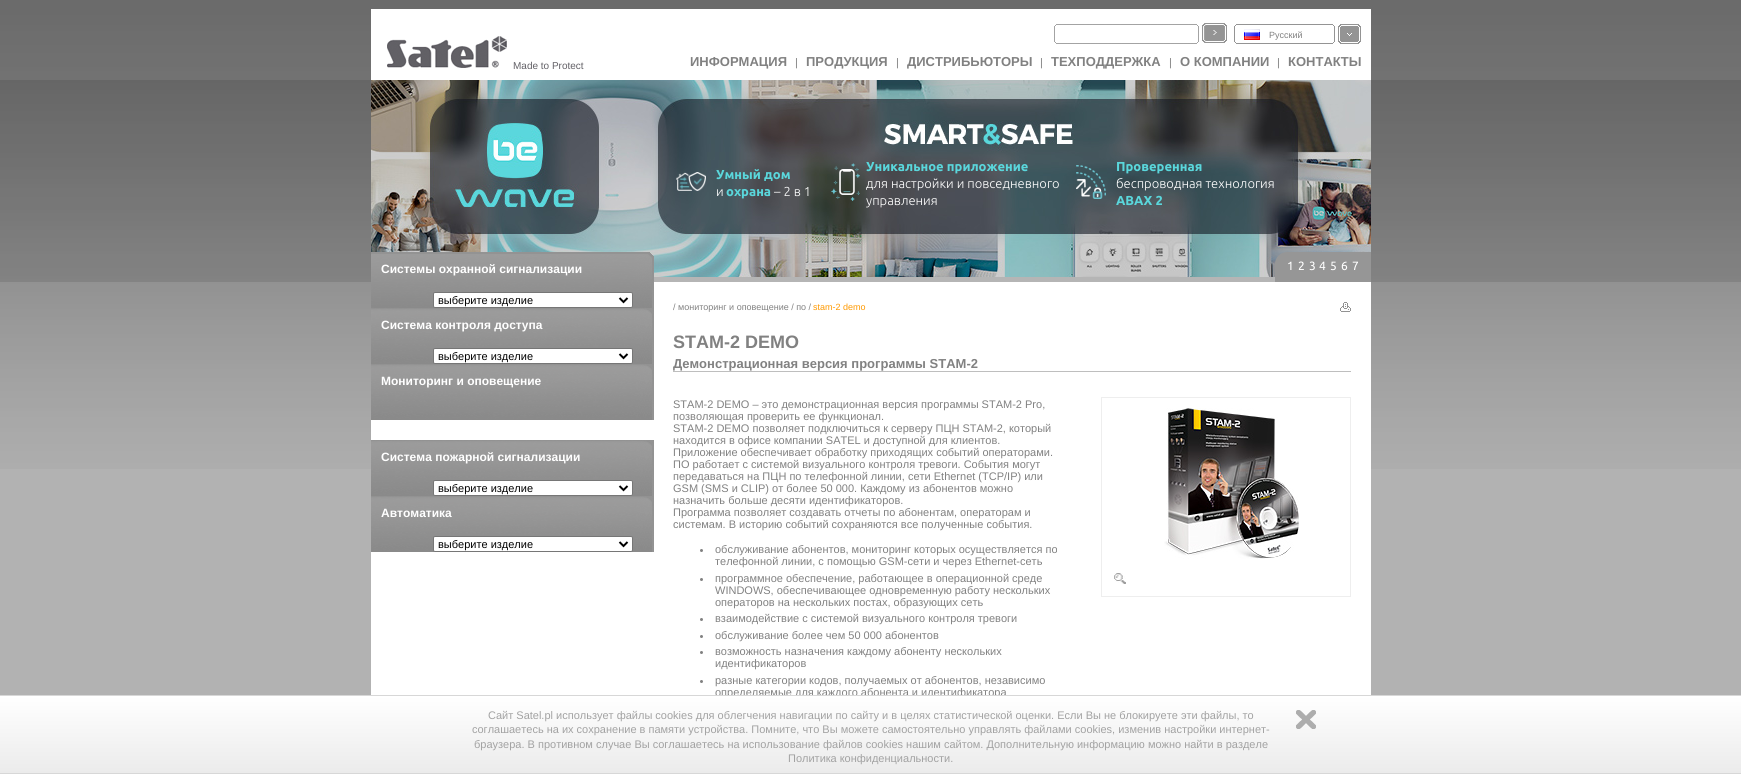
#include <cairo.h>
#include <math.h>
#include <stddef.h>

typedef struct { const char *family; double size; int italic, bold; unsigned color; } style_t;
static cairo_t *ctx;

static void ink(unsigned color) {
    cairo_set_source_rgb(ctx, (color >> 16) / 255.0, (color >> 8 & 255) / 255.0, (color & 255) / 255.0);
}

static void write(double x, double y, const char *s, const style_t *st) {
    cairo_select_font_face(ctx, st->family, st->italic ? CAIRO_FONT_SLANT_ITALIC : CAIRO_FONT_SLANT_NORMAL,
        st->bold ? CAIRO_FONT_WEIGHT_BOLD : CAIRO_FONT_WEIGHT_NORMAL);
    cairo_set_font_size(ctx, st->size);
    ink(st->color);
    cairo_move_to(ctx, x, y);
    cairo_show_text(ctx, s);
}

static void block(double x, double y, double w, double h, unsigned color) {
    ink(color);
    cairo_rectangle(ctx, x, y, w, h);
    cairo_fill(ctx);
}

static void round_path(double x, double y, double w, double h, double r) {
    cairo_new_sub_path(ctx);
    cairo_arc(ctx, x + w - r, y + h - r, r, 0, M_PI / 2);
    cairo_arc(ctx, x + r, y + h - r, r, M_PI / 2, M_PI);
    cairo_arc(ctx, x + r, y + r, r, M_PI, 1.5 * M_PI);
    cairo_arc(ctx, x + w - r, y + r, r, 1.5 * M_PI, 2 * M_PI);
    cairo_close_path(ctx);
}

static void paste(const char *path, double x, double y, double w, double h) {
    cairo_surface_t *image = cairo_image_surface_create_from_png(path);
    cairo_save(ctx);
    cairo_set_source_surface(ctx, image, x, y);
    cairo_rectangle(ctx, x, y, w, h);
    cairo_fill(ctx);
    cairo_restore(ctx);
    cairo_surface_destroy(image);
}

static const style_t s1 = {"Liberation Sans", 9, 0, 0, 0x818181};
static const style_t s2 = {"Liberation Sans", 10, 0, 0, 0x626066};
static const style_t s3 = {"Liberation Sans", 13, 0, 1, 0x818181};
static const style_t s4 = {"Liberation Sans", 11, 0, 0, 0x818181};
static const style_t s5 = {"Ubuntu", 13, 0, 1, 0x5ad7dc};
static const style_t s6 = {"Ubuntu Light", 13, 0, 0, 0xffffff};
static const style_t s7 = {"Ubuntu", 12, 0, 0, 0xffffff};
static const style_t s8 = {"Liberation Sans", 12, 0, 1, 0xffffff};
static const style_t s9 = {"Liberation Sans", 11, 0, 0, 0x000000};
static const style_t s10 = {"Liberation Sans", 9, 0, 0, 0xff9900};
static const style_t s11 = {"Liberation Sans", 18, 0, 1, 0x818181};
static const style_t s12 = {"Liberation Sans", 11, 0, 0, 0xa2a2a2};

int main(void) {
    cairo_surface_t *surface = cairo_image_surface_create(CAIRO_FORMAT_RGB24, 1741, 774);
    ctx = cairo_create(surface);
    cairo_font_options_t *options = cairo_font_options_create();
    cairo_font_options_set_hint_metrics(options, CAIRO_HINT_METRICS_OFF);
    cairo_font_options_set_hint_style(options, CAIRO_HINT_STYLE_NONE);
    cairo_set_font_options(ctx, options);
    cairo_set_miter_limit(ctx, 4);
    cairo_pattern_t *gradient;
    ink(0xb2b2b2);
    cairo_paint(ctx);
    paste("pic1.png", 0, 0, 1741, 469);
    block(371, 9, 1000, 71, 0xffffff);
    paste("pic2.png", 1054, 24, 145, 20);
    paste("pic3.png", 1202, 23, 25, 20);
    paste("pic4.png", 1234, 24, 127, 20);
    paste("pic5.png", 1244, 29, 16, 11);
    write(1269, 38, "Русский", &s1);
    paste("pic6.png", 387, 36, 120, 32);
    write(513, 69, "Made to Protect", &s2);
    write(690, 66, "ИНФОРМАЦИЯ", &s3);
    write(795, 66, "|", &s4);
    write(806, 66, "ПРОДУКЦИЯ", &s3);
    write(896, 66, "|", &s4);
    write(907, 66, "ДИСТРИБЬЮТОРЫ", &s3);
    write(1040, 66, "|", &s4);
    write(1051, 66, "ТЕХПОДДЕРЖКА", &s3);
    write(1169, 66, "|", &s4);
    write(1180, 66, "О КОМПАНИИ", &s3);
    write(1277, 66, "|", &s4);
    write(1288, 66, "КОНТАКТЫ", &s3);
    paste("pic7.png", 371, 80, 1000, 197);
    paste("pic8.png", 676, 172, 30, 19);
    write(716, 179, "Умный дом", &s5);
    write(716, 196, "и", &s6);
    write(726, 196, "охрана", &s5);
    write(774, 196, "– 2 в 1", &s6);
    paste("pic9.png", 831, 163, 29, 38);
    write(866, 171, "Уникальное приложение", &s5);
    write(866, 188, "для настройки и повседневного", &s6);
    write(866, 205, "управления", &s6);
    paste("pic10.png", 1076, 165, 30, 34);
    write(1116, 171, "Проверенная", &s5);
    write(1116, 188, "беспроводная технология", &s6);
    write(1116, 205, "ABAX 2", &s5);
    ink(0x969696);
    cairo_new_path(ctx);
    cairo_move_to(ctx, 1287, 252);
    cairo_line_to(ctx, 1371, 252);
    cairo_line_to(ctx, 1371, 282);
    cairo_line_to(ctx, 1275, 282);
    cairo_line_to(ctx, 1275, 264);
    cairo_curve_to(ctx, 1275, 257.5, 1280.5, 252, 1287, 252);
    cairo_close_path(ctx);
    cairo_fill(ctx);
    write(1287, 270, "1", &s7);
    write(1298, 270, "2", &s7);
    write(1309, 270, "3", &s7);
    write(1319, 270, "4", &s7);
    write(1330, 270, "5", &s7);
    write(1341, 270, "6", &s7);
    write(1352, 270, "7", &s7);
    block(654, 277, 621, 5, 0xb5b5b5);
    block(371, 282, 1000, 413, 0xffffff);
    paste("pic11.png", 371, 252, 283, 56);
    write(381, 273, "Системы охранной сигнализации", &s8);
    round_path(433.5, 292.5, 199, 15, 1.5);
    cairo_fill_preserve(ctx);
    ink(0x767676);
    cairo_set_line_width(ctx, 1);
    cairo_stroke(ctx);
    cairo_new_path(ctx);
    cairo_move_to(ctx, 619.5, 298);
    cairo_line_to(ctx, 623.5, 302);
    cairo_line_to(ctx, 627.5, 298);
    ink(0x000000);
    cairo_set_line_width(ctx, 2);
    cairo_stroke(ctx);
    write(438, 304, "выберите изделие", &s9);
    paste("pic12.png", 371, 308, 283, 56);
    write(381, 329, "Система контроля доступа", &s8);
    round_path(433.5, 348.5, 199, 15, 1.5);
    cairo_fill_preserve(ctx);
    ink(0x767676);
    cairo_set_line_width(ctx, 1);
    cairo_stroke(ctx);
    cairo_new_path(ctx);
    cairo_move_to(ctx, 619.5, 354);
    cairo_line_to(ctx, 623.5, 358);
    cairo_line_to(ctx, 627.5, 354);
    ink(0x000000);
    cairo_set_line_width(ctx, 2);
    cairo_stroke(ctx);
    write(438, 360, "выберите изделие", &s9);
    paste("pic12.png", 371, 364, 283, 56);
    write(381, 385, "Мониторинг и оповещение", &s8);
    paste("pic12.png", 371, 440, 283, 56);
    write(381, 461, "Система пожарной сигнализации", &s8);
    round_path(433.5, 480.5, 199, 15, 1.5);
    cairo_fill_preserve(ctx);
    ink(0x767676);
    cairo_set_line_width(ctx, 1);
    cairo_stroke(ctx);
    cairo_new_path(ctx);
    cairo_move_to(ctx, 619.5, 486);
    cairo_line_to(ctx, 623.5, 490);
    cairo_line_to(ctx, 627.5, 486);
    ink(0x000000);
    cairo_set_line_width(ctx, 2);
    cairo_stroke(ctx);
    write(438, 492, "выберите изделие", &s9);
    paste("pic12.png", 371, 496, 283, 56);
    write(381, 517, "Автоматика", &s8);
    round_path(433.5, 536.5, 199, 15, 1.5);
    cairo_fill_preserve(ctx);
    ink(0x767676);
    cairo_set_line_width(ctx, 1);
    cairo_stroke(ctx);
    cairo_new_path(ctx);
    cairo_move_to(ctx, 619.5, 542);
    cairo_line_to(ctx, 623.5, 546);
    cairo_line_to(ctx, 627.5, 542);
    ink(0x000000);
    cairo_set_line_width(ctx, 2);
    cairo_stroke(ctx);
    write(438, 548, "выберите изделие", &s9);
    write(673, 310, "/ мониторинг и оповещение / по /", &s1);
    write(813, 310, "stam-2 demo", &s10);
    paste("pic13.png", 1340, 302, 11, 10);
    write(673, 348, "STAM-2 DEMO", &s11);
    block(673, 371, 678, 1, 0xbebebe);
    write(673, 368, "Демонстрационная версия программы STAM-2", &s3);
    write(673, 408, "STAM-2 DEMO – это демонстрационная версия программы STAM-2 Pro,", &s4);
    write(673, 420, "позволяющая проверить ее функционал.", &s4);
    write(673, 432, "STAM-2 DEMO позволяет подключиться к серверу ПЦН STAM-2, который", &s4);
    write(673, 444, "находится в офисе компании SATEL и доступной для клиентов.", &s4);
    write(673, 456, "Приложение обеспечивает обработку приходящих событий операторами.", &s4);
    write(673, 468, "ПО работает с системой визуального контроля тревоги. События могут", &s4);
    write(673, 480, "передаваться на ПЦН по телефонной линии, сети Ethernet (TCP/IP) или", &s4);
    write(673, 492, "GSM (SMS и CLIP) от более 50 000. Каждому из абонентов можно", &s4);
    write(673, 504, "назначить больше десяти идентификаторов.", &s4);
    write(673, 516, "Программа позволяет создавать отчеты по абонентам, операторам и", &s4);
    write(673, 528, "системам. В историю событий сохраняются все полученные события.", &s4);
    cairo_new_path(ctx);
    cairo_arc(ctx, 701.5, 550.5, 1.5, 0, 2 * M_PI);
    cairo_fill(ctx);
    write(715, 553, "oбслуживание абонентов, мониторинг которых осуществляется по", &s4);
    write(715, 565, "телефонной линии, с помощью GSM-сети и через Ethernet-сеть", &s4);
    cairo_new_path(ctx);
    cairo_arc(ctx, 701.5, 579.5, 1.5, 0, 2 * M_PI);
    cairo_fill(ctx);
    write(715, 582, "программное обеспечение, работающее в операционной среде", &s4);
    write(715, 594, "WINDOWS, обеспечивающее одновременную работу нескольких", &s4);
    write(715, 606, "операторов на нескольких постах, образующих сеть", &s4);
    cairo_new_path(ctx);
    cairo_arc(ctx, 701.5, 619.5, 1.5, 0, 2 * M_PI);
    cairo_fill(ctx);
    write(715, 622, "взаимодействие с системой визуального контроля тревоги", &s4);
    cairo_new_path(ctx);
    cairo_arc(ctx, 701.5, 636.5, 1.5, 0, 2 * M_PI);
    cairo_fill(ctx);
    write(715, 639, "обслуживание более чем 50 000 абонентов", &s4);
    cairo_new_path(ctx);
    cairo_arc(ctx, 701.5, 652.5, 1.5, 0, 2 * M_PI);
    cairo_fill(ctx);
    write(715, 655, "возможность назначения каждому абоненту нескольких", &s4);
    write(715, 667, "идентификаторов", &s4);
    cairo_new_path(ctx);
    cairo_arc(ctx, 701.5, 681.5, 1.5, 0, 2 * M_PI);
    cairo_fill(ctx);
    write(715, 684, "разные категории кодов, получаемых от абонентов, независимо", &s4);
    write(715, 696, "определяемые для каждого абонента и идентификатора", &s4);
    cairo_rectangle(ctx, 1101.5, 397.5, 249, 199);
    ink(0xeeeeee);
    cairo_set_line_width(ctx, 1);
    cairo_stroke(ctx);
    paste("pic14.png", 1114, 573, 12, 11);
    paste("pic15.png", 1164, 408, 135, 151);
    gradient = cairo_pattern_create_linear(871, 696, 871, 773);
    cairo_pattern_add_color_stop_rgba(gradient, 0, 1, 1, 1, 1);
    cairo_pattern_add_color_stop_rgba(gradient, 1, 0.922, 0.922, 0.922, 1);
    cairo_set_source(ctx, gradient);
    cairo_pattern_destroy(gradient);
    cairo_rectangle(ctx, 0, 696, 1741, 77);
    cairo_fill(ctx);
    block(0, 695, 1741, 1, 0xd7d7d7);
    block(0, 773, 1741, 1, 0xd7d7d7);
    write(488, 719, "Сайт Satel.pl использует файлы cookies для облегчения навигации по сайту и в целях статистической оценки. Если Вы не блокируете эти файлы, то", &s12);
    write(472, 733, "соглашаетесь на их сохранение в памяти устройства. Помните, что Вы можете самостоятельно управлять файлами cookies, изменив настройки интернет-", &s12);
    write(474, 748, "браузера. В противном случае Вы соглашаетесь на использование файлов cookies нашим сайтом. Дополнительную информацию можно найти в разделе", &s12);
    write(788, 762, "Политика конфиденциальности.", &s12);
    paste("pic16.png", 1296, 710, 20, 19);
    cairo_surface_write_to_png(surface, "screenshot.png");
    cairo_font_options_destroy(options);
    cairo_destroy(ctx);
    cairo_surface_destroy(surface);
    return 0;
}
